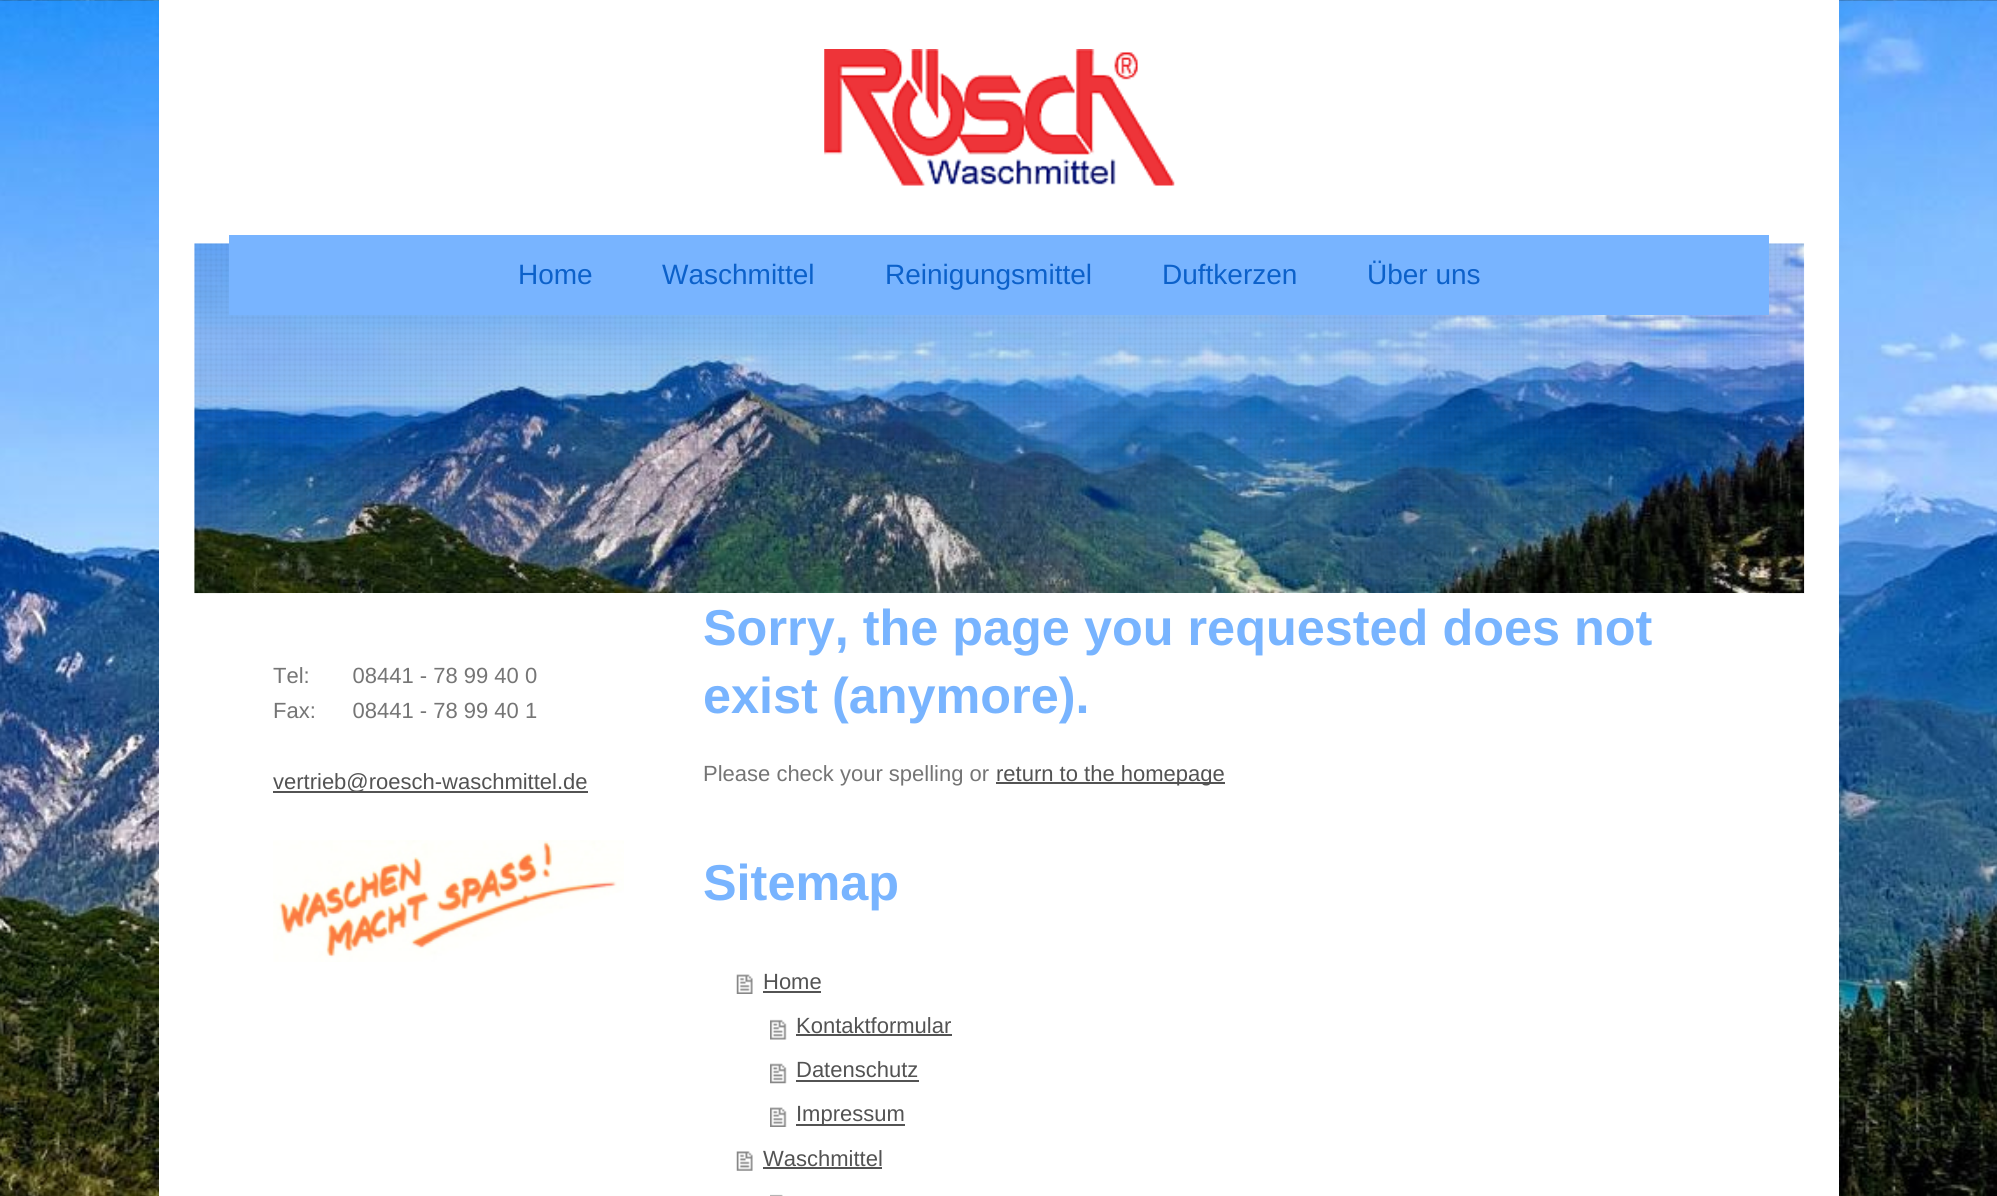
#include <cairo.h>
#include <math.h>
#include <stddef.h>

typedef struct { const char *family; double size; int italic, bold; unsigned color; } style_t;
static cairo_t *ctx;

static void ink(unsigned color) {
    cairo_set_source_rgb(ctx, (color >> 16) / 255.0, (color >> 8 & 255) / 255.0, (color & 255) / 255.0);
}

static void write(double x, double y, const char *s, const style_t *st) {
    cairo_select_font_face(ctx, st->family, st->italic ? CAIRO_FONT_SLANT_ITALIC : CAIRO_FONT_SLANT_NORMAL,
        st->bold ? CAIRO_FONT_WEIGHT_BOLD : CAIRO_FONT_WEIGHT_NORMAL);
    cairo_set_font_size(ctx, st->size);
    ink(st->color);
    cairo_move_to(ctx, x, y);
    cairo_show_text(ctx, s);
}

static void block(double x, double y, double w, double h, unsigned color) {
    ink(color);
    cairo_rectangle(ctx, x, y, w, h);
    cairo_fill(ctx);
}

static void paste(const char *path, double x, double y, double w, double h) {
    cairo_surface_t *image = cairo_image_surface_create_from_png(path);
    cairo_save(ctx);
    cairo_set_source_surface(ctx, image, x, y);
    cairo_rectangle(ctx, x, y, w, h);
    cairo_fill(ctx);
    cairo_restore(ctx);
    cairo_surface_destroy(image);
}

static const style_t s1 = {"Liberation Sans", 28, 0, 0, 0x0c61ca};
static const style_t s2 = {"Liberation Sans", 22, 0, 0, 0x757575};
static const style_t s3 = {"Liberation Sans", 22, 0, 0, 0x535353};
static const style_t s4 = {"Liberation Sans", 50.4, 0, 1, 0x78b4ff};

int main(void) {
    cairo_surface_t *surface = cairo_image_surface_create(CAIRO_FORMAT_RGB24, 1997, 1196);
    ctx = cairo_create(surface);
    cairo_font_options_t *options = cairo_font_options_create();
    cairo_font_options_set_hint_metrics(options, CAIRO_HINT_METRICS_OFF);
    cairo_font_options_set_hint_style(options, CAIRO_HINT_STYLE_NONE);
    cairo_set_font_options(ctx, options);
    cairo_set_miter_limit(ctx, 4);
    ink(0xffffff);
    cairo_paint(ctx);
    paste("pic1.png", 0, 0, 1997, 1196);
    block(159, 0, 1680, 1196, 0xffffff);
    paste("pic2.png", 824, 49, 351, 137);
    paste("pic3.png", 194, 243, 1611, 351);
    paste("pic4.png", 194, 243, 1610, 350);
    block(229, 235, 1540, 80, 0x78b4ff);
    write(518, 284, "Home", &s1);
    write(662, 284, "Waschmittel", &s1);
    write(885, 284, "Reinigungsmittel", &s1);
    write(1162, 284, "Duftkerzen", &s1);
    write(1367, 284, "Über uns", &s1);
    block(229, 593, 1540, 1, 0xffffff);
    write(273, 683, "Tel:       08441 - 78 99 40 0", &s2);
    write(273, 718, "Fax:      08441 - 78 99 40 1", &s2);
    block(273, 791, 315, 2, 0x535353);
    write(273, 789, "vertrieb@roesch-waschmittel.de", &s3);
    paste("pic5.png", 273, 840, 351, 122);
    write(703, 645, "Sorry, the page you requested does not", &s4);
    write(703, 713, "exist (anymore).", &s4);
    write(703, 781, "Please check your spelling or", &s2);
    block(996, 782, 229, 2, 0x535353);
    write(996, 781, "return to the homepage", &s3);
    write(703, 900, "Sitemap", &s4);
    paste("pic6.png", 736, 974, 17, 20);
    write(763, 989, "Home", &s3);
    block(763, 991, 58, 2, 0x535353);
    paste("pic7.png", 770, 1019, 17, 21);
    write(796, 1033, "Kontaktformular", &s3);
    block(796, 1034, 156, 2, 0x535353);
    paste("pic8.png", 770, 1063, 17, 21);
    write(796, 1077, "Datenschutz", &s3);
    block(796, 1080, 123, 2, 0x535353);
    paste("pic9.png", 770, 1107, 17, 20);
    block(796, 1124, 109, 2, 0x535353);
    write(796, 1121, "Impressum", &s3);
    paste("pic10.png", 736, 1151, 17, 20);
    write(763, 1166, "Waschmittel", &s3);
    block(763, 1167, 119, 2, 0x535353);
    paste("pic11.png", 770, 1194, 13, 2);
    cairo_surface_write_to_png(surface, "screenshot.png");
    cairo_font_options_destroy(options);
    cairo_destroy(ctx);
    cairo_surface_destroy(surface);
    return 0;
}
